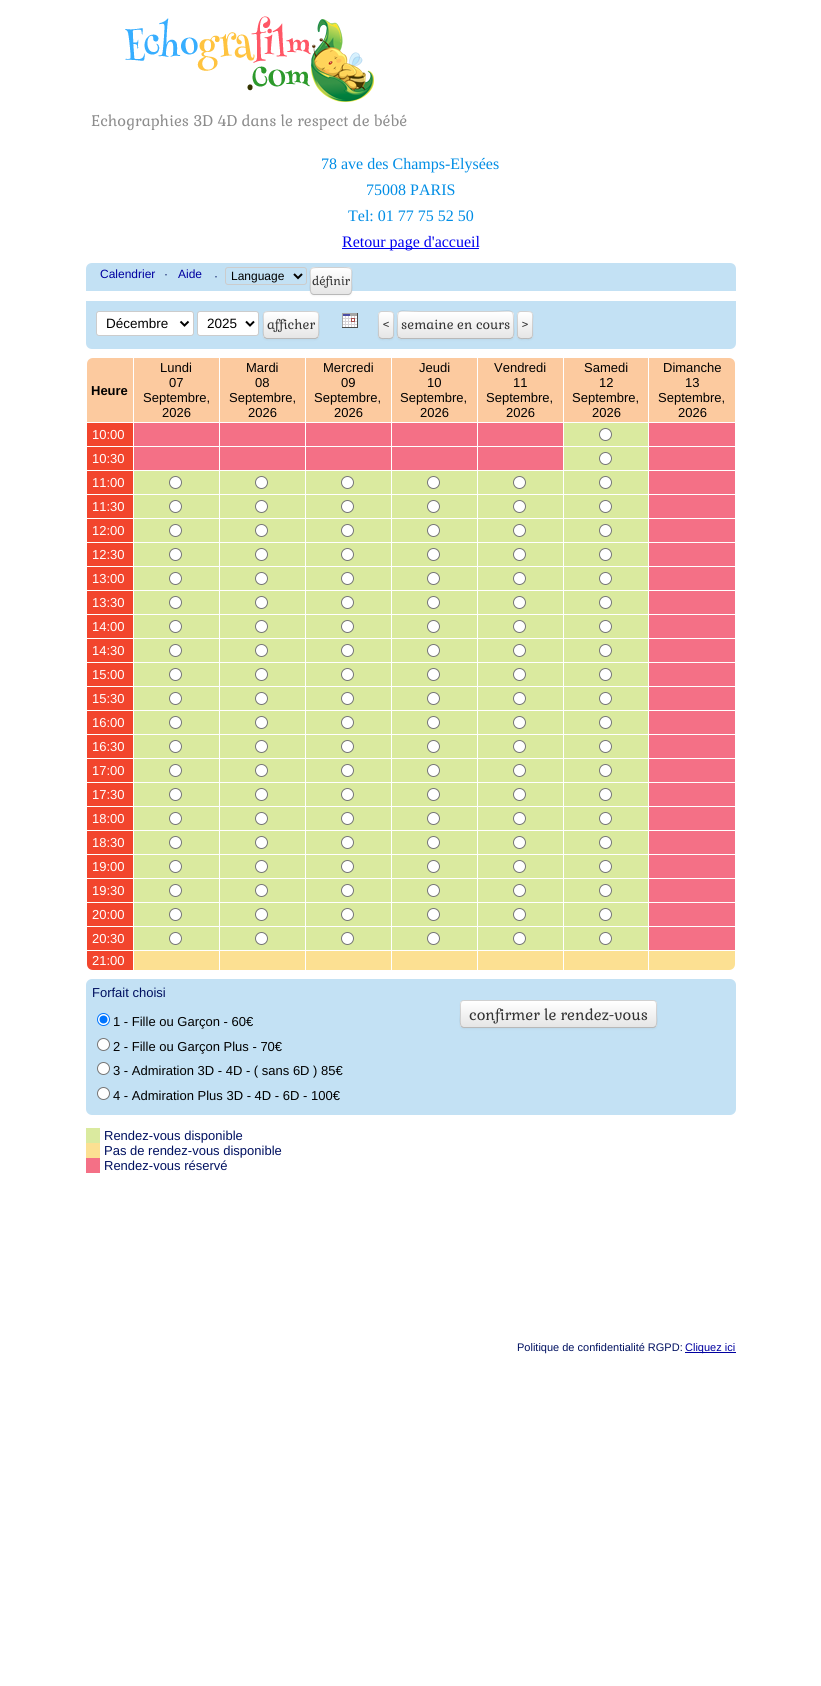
#include <cairo.h>
#include <math.h>
#include <stddef.h>

typedef struct { const char *family; double size; int italic, bold; unsigned color; } style_t;
static cairo_t *ctx;

static void ink(unsigned color) {
    cairo_set_source_rgb(ctx, (color >> 16) / 255.0, (color >> 8 & 255) / 255.0, (color & 255) / 255.0);
}

static void write(double x, double y, const char *s, const style_t *st) {
    cairo_select_font_face(ctx, st->family, st->italic ? CAIRO_FONT_SLANT_ITALIC : CAIRO_FONT_SLANT_NORMAL,
        st->bold ? CAIRO_FONT_WEIGHT_BOLD : CAIRO_FONT_WEIGHT_NORMAL);
    cairo_set_font_size(ctx, st->size);
    ink(st->color);
    cairo_move_to(ctx, x, y);
    cairo_show_text(ctx, s);
}

static void block(double x, double y, double w, double h, unsigned color) {
    ink(color);
    cairo_rectangle(ctx, x, y, w, h);
    cairo_fill(ctx);
}

static void round_path(double x, double y, double w, double h, double r) {
    cairo_new_sub_path(ctx);
    cairo_arc(ctx, x + w - r, y + h - r, r, 0, M_PI / 2);
    cairo_arc(ctx, x + r, y + h - r, r, M_PI / 2, M_PI);
    cairo_arc(ctx, x + r, y + r, r, M_PI, 1.5 * M_PI);
    cairo_arc(ctx, x + w - r, y + r, r, 1.5 * M_PI, 2 * M_PI);
    cairo_close_path(ctx);
}

static void blur_box(double x, double y, double w, double h, double r, double blur, double alpha) {
    cairo_push_group_with_content(ctx, CAIRO_CONTENT_ALPHA);
    cairo_set_operator(ctx, CAIRO_OPERATOR_SOURCE);
    for (int i = 15; i >= -15 && fmin(w, h) + blur * i / 3 > 0; i -= 2) {
        double e = blur * i / 6;
        cairo_set_source_rgba(ctx, 0, 0, 0, alpha * erfc((i - 1) / 8.5) / 2);
        round_path(x - e, y - e, w + 2 * e, h + 2 * e, fmax(0, fmin(r + e + blur * .6, fmin(w, h) / 2 + e)));
        cairo_fill(ctx);
    }
    cairo_pattern_t *soft = cairo_pop_group(ctx);
    cairo_mask(ctx, soft);
    cairo_pattern_destroy(soft);
}

static void paste(const char *path, double x, double y, double w, double h) {
    cairo_surface_t *image = cairo_image_surface_create_from_png(path);
    cairo_save(ctx);
    cairo_set_source_surface(ctx, image, x, y);
    cairo_rectangle(ctx, x, y, w, h);
    cairo_fill(ctx);
    cairo_restore(ctx);
    cairo_surface_destroy(image);
}

static const style_t s1 = {"Gabriela", 15, 0, 0, 0x8d8d8d};
static const style_t s2 = {"Liberation Serif", 16, 0, 0, 0x008de5};
static const style_t s3 = {"Liberation Serif", 16, 0, 0, 0x0000ee};
static const style_t s4 = {"Liberation Sans", 12, 0, 0, 0x0000a0};
static const style_t s5 = {"Liberation Sans", 12, 0, 0, 0x001060};
static const style_t s6 = {"Liberation Sans", 12, 0, 0, 0x000000};
static const style_t s7 = {"Gabriela", 12, 0, 0, 0x333333};
static const style_t s8 = {"Liberation Sans", 13.5, 0, 0, 0x000000};
static const style_t s9 = {"Gabriela", 13, 0, 0, 0x333333};
static const style_t s10 = {"Liberation Sans", 13, 0, 1, 0x000000};
static const style_t s11 = {"Liberation Sans", 13, 0, 0, 0x000000};
static const style_t s12 = {"Liberation Sans", 13, 0, 0, 0xffffff};
static const style_t s13 = {"Liberation Sans", 13, 0, 0, 0x001060};
static const style_t s14 = {"Gabriela", 15, 0, 0, 0x333333};
static const style_t s15 = {"Liberation Sans", 11, 0, 0, 0x001060};
static const style_t s16 = {"Liberation Sans", 11, 0, 0, 0x0000a0};

int main(void) {
    cairo_surface_t *surface = cairo_image_surface_create(CAIRO_FORMAT_RGB24, 821, 1686);
    ctx = cairo_create(surface);
    cairo_font_options_t *options = cairo_font_options_create();
    cairo_font_options_set_hint_metrics(options, CAIRO_HINT_METRICS_OFF);
    cairo_font_options_set_hint_style(options, CAIRO_HINT_STYLE_NONE);
    cairo_set_font_options(ctx, options);
    cairo_set_miter_limit(ctx, 4);
    cairo_pattern_t *gradient;
    ink(0xffffff);
    cairo_paint(ctx);
    paste("pic1.png", 125, 16, 249, 86);
    write(91, 126, "Echographies 3D 4D dans le respect de bébé", &s1);
    write(321, 169, "78 ave des Champs-Elysées", &s2);
    write(366, 195, "75008 PARIS", &s2);
    write(348, 221, "Tel: 01 77 75 52 50", &s2);
    block(342, 248, 137, 1, 0x0000ee);
    write(342, 247, "Retour page d'accueil", &s3);
    ink(0xc3e1f4);
    cairo_new_path(ctx);
    cairo_move_to(ctx, 92, 263);
    cairo_line_to(ctx, 730, 263);
    cairo_curve_to(ctx, 733.5, 263, 736, 265.5, 736, 269);
    cairo_line_to(ctx, 736, 291);
    cairo_line_to(ctx, 86, 291);
    cairo_line_to(ctx, 86, 269);
    cairo_curve_to(ctx, 86, 265.5, 88.5, 263, 92, 263);
    cairo_close_path(ctx);
    cairo_fill(ctx);
    write(100, 278, "Calendrier", &s4);
    write(164, 278, "·", &s5);
    write(178, 278, "Aide", &s4);
    write(214, 280, "·", &s5);
    round_path(225.5, 267.5, 81, 17, 2.5);
    ink(0xcccccc);
    cairo_set_line_width(ctx, 1);
    cairo_stroke(ctx);
    cairo_new_path(ctx);
    cairo_move_to(ctx, 294, 274);
    cairo_line_to(ctx, 298, 278);
    cairo_line_to(ctx, 302, 274);
    ink(0x000000);
    cairo_set_line_width(ctx, 2);
    cairo_stroke(ctx);
    write(231, 280, "Language", &s6);
    ink(0x000000);
    blur_box(310, 268, 42, 28, 4, 1, 0.05);
    ink(0xf5f5f5);
    round_path(310, 267, 42, 28, 4);
    cairo_fill(ctx);
    cairo_save(ctx);
    round_path(310, 267, 42, 28, 4);
    cairo_clip(ctx);
    gradient = cairo_pattern_create_linear(331, 268, 331, 294);
    cairo_pattern_add_color_stop_rgba(gradient, 0, 1, 1, 1, 1);
    cairo_pattern_add_color_stop_rgba(gradient, 1, 0.902, 0.902, 0.902, 1);
    cairo_set_source(ctx, gradient);
    cairo_pattern_destroy(gradient);
    cairo_rectangle(ctx, 310, 268, 42, 26);
    cairo_fill(ctx);
    cairo_restore(ctx);
    cairo_new_path(ctx);
    cairo_move_to(ctx, 350.5, 293.5);
    cairo_curve_to(ctx, 350, 294, 349, 294.5, 348, 294.5);
    cairo_line_to(ctx, 314, 294.5);
    cairo_curve_to(ctx, 313, 294.5, 312, 294, 311.5, 293.5);
    ink(0xb8b8b8);
    cairo_set_line_width(ctx, 1);
    cairo_stroke(ctx);
    cairo_new_path(ctx);
    cairo_move_to(ctx, 311.5, 293.5);
    cairo_curve_to(ctx, 309.5, 291, 310.5, 283.5, 310.5, 281);
    cairo_curve_to(ctx, 310.5, 269, 308, 267.5, 319.5, 267.5);
    cairo_line_to(ctx, 342.5, 267.5);
    cairo_curve_to(ctx, 354, 267.5, 351.5, 269, 351.5, 281);
    cairo_curve_to(ctx, 351.5, 283.5, 352.5, 291, 350.5, 293.5);
    cairo_set_source_rgba(ctx, 0, 0, 0, 0.15);
    cairo_stroke(ctx);
    write(312, 285, "définir", &s7);
    ink(0xc3e1f4);
    cairo_new_path(ctx);
    cairo_move_to(ctx, 86, 301);
    cairo_line_to(ctx, 736, 301);
    cairo_line_to(ctx, 736, 343);
    cairo_curve_to(ctx, 736, 346.5, 733.5, 349, 730, 349);
    cairo_line_to(ctx, 92, 349);
    cairo_curve_to(ctx, 88.5, 349, 86, 346.5, 86, 343);
    cairo_close_path(ctx);
    cairo_fill(ctx);
    ink(0xffffff);
    round_path(96.5, 311.5, 97, 24, 2.5);
    cairo_fill_preserve(ctx);
    ink(0xcccccc);
    cairo_stroke(ctx);
    cairo_new_path(ctx);
    cairo_move_to(ctx, 180.5, 321.5);
    cairo_line_to(ctx, 184.5, 325.5);
    cairo_line_to(ctx, 188.5, 321.5);
    ink(0x000000);
    cairo_set_line_width(ctx, 2);
    cairo_stroke(ctx);
    write(106, 328, "Décembre", &s8);
    ink(0xffffff);
    round_path(197.5, 311.5, 61, 24, 2.5);
    cairo_fill_preserve(ctx);
    ink(0xcccccc);
    cairo_set_line_width(ctx, 1);
    cairo_stroke(ctx);
    cairo_new_path(ctx);
    cairo_move_to(ctx, 246, 321.5);
    cairo_line_to(ctx, 250, 325.5);
    cairo_line_to(ctx, 254, 321.5);
    ink(0x000000);
    cairo_set_line_width(ctx, 2);
    cairo_stroke(ctx);
    write(207, 328, "2025", &s8);
    ink(0x000000);
    blur_box(263, 312, 56, 28, 4, 1, 0.05);
    ink(0xf5f5f5);
    round_path(263, 311, 56, 28, 4);
    cairo_fill(ctx);
    cairo_save(ctx);
    round_path(263, 311, 56, 28, 4);
    cairo_clip(ctx);
    gradient = cairo_pattern_create_linear(291, 312, 291, 338);
    cairo_pattern_add_color_stop_rgba(gradient, 0, 1, 1, 1, 1);
    cairo_pattern_add_color_stop_rgba(gradient, 1, 0.902, 0.902, 0.902, 1);
    cairo_set_source(ctx, gradient);
    cairo_pattern_destroy(gradient);
    cairo_rectangle(ctx, 263, 312, 56, 26);
    cairo_fill(ctx);
    cairo_restore(ctx);
    ink(0xffffff);
    cairo_new_path(ctx);
    cairo_move_to(ctx, 267, 313);
    cairo_line_to(ctx, 315, 313);
    cairo_curve_to(ctx, 317, 313, 318, 314, 318, 316);
    cairo_curve_to(ctx, 318, 310, 311, 312, 307, 312);
    cairo_line_to(ctx, 275, 312);
    cairo_curve_to(ctx, 271, 312, 264, 310, 264, 316);
    cairo_curve_to(ctx, 264, 314, 265, 313, 267, 313);
    cairo_close_path(ctx);
    cairo_fill(ctx);
    cairo_new_path(ctx);
    cairo_move_to(ctx, 317.5, 337.5);
    cairo_line_to(ctx, 315.5, 338.5);
    cairo_line_to(ctx, 266.5, 338.5);
    cairo_line_to(ctx, 264.5, 337.5);
    cairo_set_source_rgba(ctx, 0, 0, 0, 0.25);
    cairo_set_line_width(ctx, 1);
    cairo_stroke(ctx);
    cairo_new_path(ctx);
    cairo_move_to(ctx, 264.5, 337.5);
    cairo_curve_to(ctx, 262.5, 335, 263.5, 327.5, 263.5, 325);
    cairo_curve_to(ctx, 263.5, 311, 261, 311.5, 275, 311.5);
    cairo_line_to(ctx, 307, 311.5);
    cairo_curve_to(ctx, 321, 311.5, 318.5, 311, 318.5, 325);
    cairo_curve_to(ctx, 318.5, 327.5, 319.5, 335, 317.5, 337.5);
    cairo_set_source_rgba(ctx, 0, 0, 0, 0.15);
    cairo_stroke(ctx);
    write(267, 329, "afficher", &s9);
    paste("pic2.png", 342, 313, 16, 15);
    ink(0x000000);
    blur_box(378, 312, 16, 28, 4, 1, 0.05);
    ink(0xf5f5f5);
    round_path(378, 311, 16, 28, 4);
    cairo_fill(ctx);
    cairo_save(ctx);
    round_path(378, 311, 16, 28, 4);
    cairo_clip(ctx);
    gradient = cairo_pattern_create_linear(386, 312, 386, 338);
    cairo_pattern_add_color_stop_rgba(gradient, 0, 1, 1, 1, 1);
    cairo_pattern_add_color_stop_rgba(gradient, 1, 0.902, 0.902, 0.902, 1);
    cairo_set_source(ctx, gradient);
    cairo_pattern_destroy(gradient);
    cairo_rectangle(ctx, 378, 312, 16, 26);
    cairo_fill(ctx);
    cairo_restore(ctx);
    cairo_new_path(ctx);
    cairo_move_to(ctx, 392.5, 337.5);
    cairo_curve_to(ctx, 391, 339, 388, 338.5, 386, 338.5);
    cairo_curve_to(ctx, 384, 338.5, 381, 339, 379.5, 337.5);
    cairo_set_source_rgba(ctx, 0, 0, 0, 0.25);
    cairo_stroke(ctx);
    cairo_new_path(ctx);
    cairo_move_to(ctx, 379.5, 337.5);
    cairo_curve_to(ctx, 378, 336, 378.5, 333.5, 378.5, 331.5);
    cairo_line_to(ctx, 378.5, 318.5);
    cairo_curve_to(ctx, 378.5, 316, 378, 312, 381.5, 311.5);
    cairo_line_to(ctx, 386, 311.5);
    cairo_curve_to(ctx, 395, 311.5, 393.5, 312.5, 393.5, 321.5);
    cairo_line_to(ctx, 393.5, 331.5);
    cairo_curve_to(ctx, 393.5, 333.5, 394, 336, 392.5, 337.5);
    cairo_set_source_rgba(ctx, 0, 0, 0, 0.15);
    cairo_stroke(ctx);
    write(382, 329, "<", &s9);
    ink(0x000000);
    blur_box(397, 312, 117, 28, 4, 1, 0.05);
    ink(0xf5f5f5);
    round_path(397, 311, 117, 28, 4);
    cairo_fill(ctx);
    cairo_save(ctx);
    round_path(397, 311, 117, 28, 4);
    cairo_clip(ctx);
    gradient = cairo_pattern_create_linear(456, 312, 456, 338);
    cairo_pattern_add_color_stop_rgba(gradient, 0, 1, 1, 1, 1);
    cairo_pattern_add_color_stop_rgba(gradient, 1, 0.902, 0.902, 0.902, 1);
    cairo_set_source(ctx, gradient);
    cairo_pattern_destroy(gradient);
    cairo_rectangle(ctx, 397, 312, 117, 26);
    cairo_fill(ctx);
    cairo_restore(ctx);
    cairo_set_source_rgba(ctx, 1, 1, 1, 0.2);
    cairo_new_path(ctx);
    cairo_move_to(ctx, 401, 313);
    cairo_line_to(ctx, 510, 313);
    cairo_curve_to(ctx, 512, 313, 513, 314, 513, 316);
    cairo_curve_to(ctx, 513, 314, 512, 312, 510, 312);
    cairo_line_to(ctx, 419, 312);
    cairo_curve_to(ctx, 418, 312, 398, 307, 398, 316);
    cairo_curve_to(ctx, 398, 314, 399, 313, 401, 313);
    cairo_close_path(ctx);
    cairo_fill(ctx);
    cairo_new_path(ctx);
    cairo_move_to(ctx, 512.5, 337.5);
    cairo_line_to(ctx, 510.5, 338.5);
    cairo_line_to(ctx, 419, 338.5);
    cairo_line_to(ctx, 401, 338.5);
    cairo_line_to(ctx, 398.5, 337.5);
    cairo_set_source_rgba(ctx, 0, 0, 0, 0.25);
    cairo_stroke(ctx);
    cairo_new_path(ctx);
    cairo_move_to(ctx, 398.5, 337.5);
    cairo_curve_to(ctx, 396.5, 335, 397.5, 327.5, 397.5, 325);
    cairo_curve_to(ctx, 397.5, 307, 396.5, 311.5, 419, 311.5);
    cairo_line_to(ctx, 492, 311.5);
    cairo_curve_to(ctx, 514.5, 311.5, 513.5, 307, 513.5, 325);
    cairo_curve_to(ctx, 513.5, 327.5, 514.5, 335, 512.5, 337.5);
    cairo_set_source_rgba(ctx, 0, 0, 0, 0.15);
    cairo_stroke(ctx);
    write(401, 329, "semaine en cours", &s9);
    ink(0x000000);
    blur_box(517, 312, 16, 28, 4, 1, 0.05);
    ink(0xf5f5f5);
    round_path(517, 311, 16, 28, 4);
    cairo_fill(ctx);
    cairo_save(ctx);
    round_path(517, 311, 16, 28, 4);
    cairo_clip(ctx);
    gradient = cairo_pattern_create_linear(525, 312, 525, 338);
    cairo_pattern_add_color_stop_rgba(gradient, 0, 1, 1, 1, 1);
    cairo_pattern_add_color_stop_rgba(gradient, 1, 0.902, 0.902, 0.902, 1);
    cairo_set_source(ctx, gradient);
    cairo_pattern_destroy(gradient);
    cairo_rectangle(ctx, 517, 312, 16, 26);
    cairo_fill(ctx);
    cairo_restore(ctx);
    cairo_new_path(ctx);
    cairo_move_to(ctx, 531.5, 337.5);
    cairo_curve_to(ctx, 530, 339, 527, 338.5, 525, 338.5);
    cairo_curve_to(ctx, 523, 338.5, 520, 339, 518.5, 337.5);
    cairo_set_source_rgba(ctx, 0, 0, 0, 0.25);
    cairo_stroke(ctx);
    cairo_new_path(ctx);
    cairo_move_to(ctx, 518.5, 337.5);
    cairo_curve_to(ctx, 517, 336, 517.5, 333.5, 517.5, 331.5);
    cairo_line_to(ctx, 517.5, 318.5);
    cairo_curve_to(ctx, 517.5, 316, 517, 312, 520.5, 311.5);
    cairo_line_to(ctx, 525, 311.5);
    cairo_curve_to(ctx, 534, 311.5, 532.5, 312.5, 532.5, 321.5);
    cairo_line_to(ctx, 532.5, 331.5);
    cairo_curve_to(ctx, 532.5, 333.5, 533, 336, 531.5, 337.5);
    cairo_set_source_rgba(ctx, 0, 0, 0, 0.15);
    cairo_stroke(ctx);
    write(521, 329, ">", &s9);
    ink(0xfcca9f);
    cairo_new_path(ctx);
    cairo_move_to(ctx, 93, 358);
    cairo_line_to(ctx, 133, 358);
    cairo_line_to(ctx, 133, 422);
    cairo_line_to(ctx, 87, 422);
    cairo_line_to(ctx, 87, 364);
    cairo_curve_to(ctx, 87, 360.5, 89.5, 358, 93, 358);
    cairo_close_path(ctx);
    cairo_fill(ctx);
    write(91, 395, "Heure", &s10);
    block(134, 358, 85, 64, 0xfcca9f);
    write(160, 372, "Lundi", &s11);
    write(169, 387, "07", &s11);
    write(143, 402, "Septembre,", &s11);
    write(162, 417, "2026", &s11);
    block(220, 358, 85, 64, 0xfcca9f);
    write(246, 372, "Mardi", &s11);
    write(255, 387, "08", &s11);
    write(229, 402, "Septembre,", &s11);
    write(248, 417, "2026", &s11);
    block(306, 358, 85, 64, 0xfcca9f);
    write(323, 372, "Mercredi", &s11);
    write(341, 387, "09", &s11);
    write(314, 402, "Septembre,", &s11);
    write(334, 417, "2026", &s11);
    block(392, 358, 85, 64, 0xfcca9f);
    write(419, 372, "Jeudi", &s11);
    write(427, 387, "10", &s11);
    write(400, 402, "Septembre,", &s11);
    write(420, 417, "2026", &s11);
    block(478, 358, 85, 64, 0xfcca9f);
    write(494, 372, "Vendredi", &s11);
    write(513, 387, "11", &s11);
    write(486, 402, "Septembre,", &s11);
    write(506, 417, "2026", &s11);
    block(564, 358, 84, 64, 0xfcca9f);
    write(584, 372, "Samedi", &s11);
    write(599, 387, "12", &s11);
    write(572, 402, "Septembre,", &s11);
    write(592, 417, "2026", &s11);
    ink(0xfcca9f);
    cairo_new_path(ctx);
    cairo_move_to(ctx, 649, 358);
    cairo_line_to(ctx, 729, 358);
    cairo_curve_to(ctx, 732.5, 358, 735, 360.5, 735, 364);
    cairo_line_to(ctx, 735, 422);
    cairo_line_to(ctx, 649, 422);
    cairo_close_path(ctx);
    cairo_fill(ctx);
    write(663, 372, "Dimanche", &s11);
    write(685, 387, "13", &s11);
    write(658, 402, "Septembre,", &s11);
    write(678, 417, "2026", &s11);
    block(87, 423, 46, 23, 0xf2452d);
    write(92, 439, "10:00", &s12);
    block(134, 423, 85, 23, 0xf47086);
    block(220, 423, 85, 23, 0xf47086);
    block(306, 423, 85, 23, 0xf47086);
    block(392, 423, 85, 23, 0xf47086);
    block(478, 423, 85, 23, 0xf47086);
    block(564, 423, 84, 23, 0xdaea9f);
    ink(0xffffff);
    cairo_new_path(ctx);
    cairo_arc(ctx, 605.5, 434.5, 6, 0, 2 * M_PI);
    cairo_fill_preserve(ctx);
    ink(0x767676);
    cairo_stroke(ctx);
    block(649, 423, 86, 23, 0xf47086);
    block(87, 447, 46, 23, 0xf2452d);
    write(92, 463, "10:30", &s12);
    block(134, 447, 85, 23, 0xf47086);
    block(220, 447, 85, 23, 0xf47086);
    block(306, 447, 85, 23, 0xf47086);
    block(392, 447, 85, 23, 0xf47086);
    block(478, 447, 85, 23, 0xf47086);
    block(564, 447, 84, 23, 0xdaea9f);
    ink(0xffffff);
    cairo_new_path(ctx);
    cairo_arc(ctx, 605.5, 458.5, 6, 0, 2 * M_PI);
    cairo_fill_preserve(ctx);
    ink(0x767676);
    cairo_stroke(ctx);
    block(649, 447, 86, 23, 0xf47086);
    block(87, 471, 46, 23, 0xf2452d);
    write(92, 487, "11:00", &s12);
    block(134, 471, 85, 23, 0xdaea9f);
    ink(0xffffff);
    cairo_new_path(ctx);
    cairo_arc(ctx, 175.5, 482.5, 6, 0, 2 * M_PI);
    cairo_fill_preserve(ctx);
    ink(0x767676);
    cairo_stroke(ctx);
    block(220, 471, 85, 23, 0xdaea9f);
    ink(0xffffff);
    cairo_arc(ctx, 261.5, 482.5, 6, 0, 2 * M_PI);
    cairo_fill_preserve(ctx);
    ink(0x767676);
    cairo_stroke(ctx);
    block(306, 471, 85, 23, 0xdaea9f);
    ink(0xffffff);
    cairo_arc(ctx, 347.5, 482.5, 6, 0, 2 * M_PI);
    cairo_fill_preserve(ctx);
    ink(0x767676);
    cairo_stroke(ctx);
    block(392, 471, 85, 23, 0xdaea9f);
    ink(0xffffff);
    cairo_arc(ctx, 433.5, 482.5, 6, 0, 2 * M_PI);
    cairo_fill_preserve(ctx);
    ink(0x767676);
    cairo_stroke(ctx);
    block(478, 471, 85, 23, 0xdaea9f);
    ink(0xffffff);
    cairo_arc(ctx, 519.5, 482.5, 6, 0, 2 * M_PI);
    cairo_fill_preserve(ctx);
    ink(0x767676);
    cairo_stroke(ctx);
    block(564, 471, 84, 23, 0xdaea9f);
    ink(0xffffff);
    cairo_arc(ctx, 605.5, 482.5, 6, 0, 2 * M_PI);
    cairo_fill_preserve(ctx);
    ink(0x767676);
    cairo_stroke(ctx);
    block(649, 471, 86, 23, 0xf47086);
    block(87, 495, 46, 23, 0xf2452d);
    write(92, 511, "11:30", &s12);
    block(134, 495, 85, 23, 0xdaea9f);
    ink(0xffffff);
    cairo_new_path(ctx);
    cairo_arc(ctx, 175.5, 506.5, 6, 0, 2 * M_PI);
    cairo_fill_preserve(ctx);
    ink(0x767676);
    cairo_stroke(ctx);
    block(220, 495, 85, 23, 0xdaea9f);
    ink(0xffffff);
    cairo_arc(ctx, 261.5, 506.5, 6, 0, 2 * M_PI);
    cairo_fill_preserve(ctx);
    ink(0x767676);
    cairo_stroke(ctx);
    block(306, 495, 85, 23, 0xdaea9f);
    ink(0xffffff);
    cairo_arc(ctx, 347.5, 506.5, 6, 0, 2 * M_PI);
    cairo_fill_preserve(ctx);
    ink(0x767676);
    cairo_stroke(ctx);
    block(392, 495, 85, 23, 0xdaea9f);
    ink(0xffffff);
    cairo_arc(ctx, 433.5, 506.5, 6, 0, 2 * M_PI);
    cairo_fill_preserve(ctx);
    ink(0x767676);
    cairo_stroke(ctx);
    block(478, 495, 85, 23, 0xdaea9f);
    ink(0xffffff);
    cairo_arc(ctx, 519.5, 506.5, 6, 0, 2 * M_PI);
    cairo_fill_preserve(ctx);
    ink(0x767676);
    cairo_stroke(ctx);
    block(564, 495, 84, 23, 0xdaea9f);
    ink(0xffffff);
    cairo_arc(ctx, 605.5, 506.5, 6, 0, 2 * M_PI);
    cairo_fill_preserve(ctx);
    ink(0x767676);
    cairo_stroke(ctx);
    block(649, 495, 86, 23, 0xf47086);
    block(87, 519, 46, 23, 0xf2452d);
    write(92, 535, "12:00", &s12);
    block(134, 519, 85, 23, 0xdaea9f);
    ink(0xffffff);
    cairo_new_path(ctx);
    cairo_arc(ctx, 175.5, 530.5, 6, 0, 2 * M_PI);
    cairo_fill_preserve(ctx);
    ink(0x767676);
    cairo_stroke(ctx);
    block(220, 519, 85, 23, 0xdaea9f);
    ink(0xffffff);
    cairo_arc(ctx, 261.5, 530.5, 6, 0, 2 * M_PI);
    cairo_fill_preserve(ctx);
    ink(0x767676);
    cairo_stroke(ctx);
    block(306, 519, 85, 23, 0xdaea9f);
    ink(0xffffff);
    cairo_arc(ctx, 347.5, 530.5, 6, 0, 2 * M_PI);
    cairo_fill_preserve(ctx);
    ink(0x767676);
    cairo_stroke(ctx);
    block(392, 519, 85, 23, 0xdaea9f);
    ink(0xffffff);
    cairo_arc(ctx, 433.5, 530.5, 6, 0, 2 * M_PI);
    cairo_fill_preserve(ctx);
    ink(0x767676);
    cairo_stroke(ctx);
    block(478, 519, 85, 23, 0xdaea9f);
    ink(0xffffff);
    cairo_arc(ctx, 519.5, 530.5, 6, 0, 2 * M_PI);
    cairo_fill_preserve(ctx);
    ink(0x767676);
    cairo_stroke(ctx);
    block(564, 519, 84, 23, 0xdaea9f);
    ink(0xffffff);
    cairo_arc(ctx, 605.5, 530.5, 6, 0, 2 * M_PI);
    cairo_fill_preserve(ctx);
    ink(0x767676);
    cairo_stroke(ctx);
    block(649, 519, 86, 23, 0xf47086);
    block(87, 543, 46, 23, 0xf2452d);
    write(92, 559, "12:30", &s12);
    block(134, 543, 85, 23, 0xdaea9f);
    ink(0xffffff);
    cairo_new_path(ctx);
    cairo_arc(ctx, 175.5, 554.5, 6, 0, 2 * M_PI);
    cairo_fill_preserve(ctx);
    ink(0x767676);
    cairo_stroke(ctx);
    block(220, 543, 85, 23, 0xdaea9f);
    ink(0xffffff);
    cairo_arc(ctx, 261.5, 554.5, 6, 0, 2 * M_PI);
    cairo_fill_preserve(ctx);
    ink(0x767676);
    cairo_stroke(ctx);
    block(306, 543, 85, 23, 0xdaea9f);
    ink(0xffffff);
    cairo_arc(ctx, 347.5, 554.5, 6, 0, 2 * M_PI);
    cairo_fill_preserve(ctx);
    ink(0x767676);
    cairo_stroke(ctx);
    block(392, 543, 85, 23, 0xdaea9f);
    ink(0xffffff);
    cairo_arc(ctx, 433.5, 554.5, 6, 0, 2 * M_PI);
    cairo_fill_preserve(ctx);
    ink(0x767676);
    cairo_stroke(ctx);
    block(478, 543, 85, 23, 0xdaea9f);
    ink(0xffffff);
    cairo_arc(ctx, 519.5, 554.5, 6, 0, 2 * M_PI);
    cairo_fill_preserve(ctx);
    ink(0x767676);
    cairo_stroke(ctx);
    block(564, 543, 84, 23, 0xdaea9f);
    ink(0xffffff);
    cairo_arc(ctx, 605.5, 554.5, 6, 0, 2 * M_PI);
    cairo_fill_preserve(ctx);
    ink(0x767676);
    cairo_stroke(ctx);
    block(649, 543, 86, 23, 0xf47086);
    block(87, 567, 46, 23, 0xf2452d);
    write(92, 583, "13:00", &s12);
    block(134, 567, 85, 23, 0xdaea9f);
    ink(0xffffff);
    cairo_new_path(ctx);
    cairo_arc(ctx, 175.5, 578.5, 6, 0, 2 * M_PI);
    cairo_fill_preserve(ctx);
    ink(0x767676);
    cairo_stroke(ctx);
    block(220, 567, 85, 23, 0xdaea9f);
    ink(0xffffff);
    cairo_arc(ctx, 261.5, 578.5, 6, 0, 2 * M_PI);
    cairo_fill_preserve(ctx);
    ink(0x767676);
    cairo_stroke(ctx);
    block(306, 567, 85, 23, 0xdaea9f);
    ink(0xffffff);
    cairo_arc(ctx, 347.5, 578.5, 6, 0, 2 * M_PI);
    cairo_fill_preserve(ctx);
    ink(0x767676);
    cairo_stroke(ctx);
    block(392, 567, 85, 23, 0xdaea9f);
    ink(0xffffff);
    cairo_arc(ctx, 433.5, 578.5, 6, 0, 2 * M_PI);
    cairo_fill_preserve(ctx);
    ink(0x767676);
    cairo_stroke(ctx);
    block(478, 567, 85, 23, 0xdaea9f);
    ink(0xffffff);
    cairo_arc(ctx, 519.5, 578.5, 6, 0, 2 * M_PI);
    cairo_fill_preserve(ctx);
    ink(0x767676);
    cairo_stroke(ctx);
    block(564, 567, 84, 23, 0xdaea9f);
    ink(0xffffff);
    cairo_arc(ctx, 605.5, 578.5, 6, 0, 2 * M_PI);
    cairo_fill_preserve(ctx);
    ink(0x767676);
    cairo_stroke(ctx);
    block(649, 567, 86, 23, 0xf47086);
    block(87, 591, 46, 23, 0xf2452d);
    write(92, 607, "13:30", &s12);
    block(134, 591, 85, 23, 0xdaea9f);
    ink(0xffffff);
    cairo_new_path(ctx);
    cairo_arc(ctx, 175.5, 602.5, 6, 0, 2 * M_PI);
    cairo_fill_preserve(ctx);
    ink(0x767676);
    cairo_stroke(ctx);
    block(220, 591, 85, 23, 0xdaea9f);
    ink(0xffffff);
    cairo_arc(ctx, 261.5, 602.5, 6, 0, 2 * M_PI);
    cairo_fill_preserve(ctx);
    ink(0x767676);
    cairo_stroke(ctx);
    block(306, 591, 85, 23, 0xdaea9f);
    ink(0xffffff);
    cairo_arc(ctx, 347.5, 602.5, 6, 0, 2 * M_PI);
    cairo_fill_preserve(ctx);
    ink(0x767676);
    cairo_stroke(ctx);
    block(392, 591, 85, 23, 0xdaea9f);
    ink(0xffffff);
    cairo_arc(ctx, 433.5, 602.5, 6, 0, 2 * M_PI);
    cairo_fill_preserve(ctx);
    ink(0x767676);
    cairo_stroke(ctx);
    block(478, 591, 85, 23, 0xdaea9f);
    ink(0xffffff);
    cairo_arc(ctx, 519.5, 602.5, 6, 0, 2 * M_PI);
    cairo_fill_preserve(ctx);
    ink(0x767676);
    cairo_stroke(ctx);
    block(564, 591, 84, 23, 0xdaea9f);
    ink(0xffffff);
    cairo_arc(ctx, 605.5, 602.5, 6, 0, 2 * M_PI);
    cairo_fill_preserve(ctx);
    ink(0x767676);
    cairo_stroke(ctx);
    block(649, 591, 86, 23, 0xf47086);
    block(87, 615, 46, 23, 0xf2452d);
    write(92, 631, "14:00", &s12);
    block(134, 615, 85, 23, 0xdaea9f);
    ink(0xffffff);
    cairo_new_path(ctx);
    cairo_arc(ctx, 175.5, 626.5, 6, 0, 2 * M_PI);
    cairo_fill_preserve(ctx);
    ink(0x767676);
    cairo_stroke(ctx);
    block(220, 615, 85, 23, 0xdaea9f);
    ink(0xffffff);
    cairo_arc(ctx, 261.5, 626.5, 6, 0, 2 * M_PI);
    cairo_fill_preserve(ctx);
    ink(0x767676);
    cairo_stroke(ctx);
    block(306, 615, 85, 23, 0xdaea9f);
    ink(0xffffff);
    cairo_arc(ctx, 347.5, 626.5, 6, 0, 2 * M_PI);
    cairo_fill_preserve(ctx);
    ink(0x767676);
    cairo_stroke(ctx);
    block(392, 615, 85, 23, 0xdaea9f);
    ink(0xffffff);
    cairo_arc(ctx, 433.5, 626.5, 6, 0, 2 * M_PI);
    cairo_fill_preserve(ctx);
    ink(0x767676);
    cairo_stroke(ctx);
    block(478, 615, 85, 23, 0xdaea9f);
    ink(0xffffff);
    cairo_arc(ctx, 519.5, 626.5, 6, 0, 2 * M_PI);
    cairo_fill_preserve(ctx);
    ink(0x767676);
    cairo_stroke(ctx);
    block(564, 615, 84, 23, 0xdaea9f);
    ink(0xffffff);
    cairo_arc(ctx, 605.5, 626.5, 6, 0, 2 * M_PI);
    cairo_fill_preserve(ctx);
    ink(0x767676);
    cairo_stroke(ctx);
    block(649, 615, 86, 23, 0xf47086);
    block(87, 639, 46, 23, 0xf2452d);
    write(92, 655, "14:30", &s12);
    block(134, 639, 85, 23, 0xdaea9f);
    ink(0xffffff);
    cairo_new_path(ctx);
    cairo_arc(ctx, 175.5, 650.5, 6, 0, 2 * M_PI);
    cairo_fill_preserve(ctx);
    ink(0x767676);
    cairo_stroke(ctx);
    block(220, 639, 85, 23, 0xdaea9f);
    ink(0xffffff);
    cairo_arc(ctx, 261.5, 650.5, 6, 0, 2 * M_PI);
    cairo_fill_preserve(ctx);
    ink(0x767676);
    cairo_stroke(ctx);
    block(306, 639, 85, 23, 0xdaea9f);
    ink(0xffffff);
    cairo_arc(ctx, 347.5, 650.5, 6, 0, 2 * M_PI);
    cairo_fill_preserve(ctx);
    ink(0x767676);
    cairo_stroke(ctx);
    block(392, 639, 85, 23, 0xdaea9f);
    ink(0xffffff);
    cairo_arc(ctx, 433.5, 650.5, 6, 0, 2 * M_PI);
    cairo_fill_preserve(ctx);
    ink(0x767676);
    cairo_stroke(ctx);
    block(478, 639, 85, 23, 0xdaea9f);
    ink(0xffffff);
    cairo_arc(ctx, 519.5, 650.5, 6, 0, 2 * M_PI);
    cairo_fill_preserve(ctx);
    ink(0x767676);
    cairo_stroke(ctx);
    block(564, 639, 84, 23, 0xdaea9f);
    ink(0xffffff);
    cairo_arc(ctx, 605.5, 650.5, 6, 0, 2 * M_PI);
    cairo_fill_preserve(ctx);
    ink(0x767676);
    cairo_stroke(ctx);
    block(649, 639, 86, 23, 0xf47086);
    block(87, 663, 46, 23, 0xf2452d);
    write(92, 679, "15:00", &s12);
    block(134, 663, 85, 23, 0xdaea9f);
    ink(0xffffff);
    cairo_new_path(ctx);
    cairo_arc(ctx, 175.5, 674.5, 6, 0, 2 * M_PI);
    cairo_fill_preserve(ctx);
    ink(0x767676);
    cairo_stroke(ctx);
    block(220, 663, 85, 23, 0xdaea9f);
    ink(0xffffff);
    cairo_arc(ctx, 261.5, 674.5, 6, 0, 2 * M_PI);
    cairo_fill_preserve(ctx);
    ink(0x767676);
    cairo_stroke(ctx);
    block(306, 663, 85, 23, 0xdaea9f);
    ink(0xffffff);
    cairo_arc(ctx, 347.5, 674.5, 6, 0, 2 * M_PI);
    cairo_fill_preserve(ctx);
    ink(0x767676);
    cairo_stroke(ctx);
    block(392, 663, 85, 23, 0xdaea9f);
    ink(0xffffff);
    cairo_arc(ctx, 433.5, 674.5, 6, 0, 2 * M_PI);
    cairo_fill_preserve(ctx);
    ink(0x767676);
    cairo_stroke(ctx);
    block(478, 663, 85, 23, 0xdaea9f);
    ink(0xffffff);
    cairo_arc(ctx, 519.5, 674.5, 6, 0, 2 * M_PI);
    cairo_fill_preserve(ctx);
    ink(0x767676);
    cairo_stroke(ctx);
    block(564, 663, 84, 23, 0xdaea9f);
    ink(0xffffff);
    cairo_arc(ctx, 605.5, 674.5, 6, 0, 2 * M_PI);
    cairo_fill_preserve(ctx);
    ink(0x767676);
    cairo_stroke(ctx);
    block(649, 663, 86, 23, 0xf47086);
    block(87, 687, 46, 23, 0xf2452d);
    write(92, 703, "15:30", &s12);
    block(134, 687, 85, 23, 0xdaea9f);
    ink(0xffffff);
    cairo_new_path(ctx);
    cairo_arc(ctx, 175.5, 698.5, 6, 0, 2 * M_PI);
    cairo_fill_preserve(ctx);
    ink(0x767676);
    cairo_stroke(ctx);
    block(220, 687, 85, 23, 0xdaea9f);
    ink(0xffffff);
    cairo_arc(ctx, 261.5, 698.5, 6, 0, 2 * M_PI);
    cairo_fill_preserve(ctx);
    ink(0x767676);
    cairo_stroke(ctx);
    block(306, 687, 85, 23, 0xdaea9f);
    ink(0xffffff);
    cairo_arc(ctx, 347.5, 698.5, 6, 0, 2 * M_PI);
    cairo_fill_preserve(ctx);
    ink(0x767676);
    cairo_stroke(ctx);
    block(392, 687, 85, 23, 0xdaea9f);
    ink(0xffffff);
    cairo_arc(ctx, 433.5, 698.5, 6, 0, 2 * M_PI);
    cairo_fill_preserve(ctx);
    ink(0x767676);
    cairo_stroke(ctx);
    block(478, 687, 85, 23, 0xdaea9f);
    ink(0xffffff);
    cairo_arc(ctx, 519.5, 698.5, 6, 0, 2 * M_PI);
    cairo_fill_preserve(ctx);
    ink(0x767676);
    cairo_stroke(ctx);
    block(564, 687, 84, 23, 0xdaea9f);
    ink(0xffffff);
    cairo_arc(ctx, 605.5, 698.5, 6, 0, 2 * M_PI);
    cairo_fill_preserve(ctx);
    ink(0x767676);
    cairo_stroke(ctx);
    block(649, 687, 86, 23, 0xf47086);
    block(87, 711, 46, 23, 0xf2452d);
    write(92, 727, "16:00", &s12);
    block(134, 711, 85, 23, 0xdaea9f);
    ink(0xffffff);
    cairo_new_path(ctx);
    cairo_arc(ctx, 175.5, 722.5, 6, 0, 2 * M_PI);
    cairo_fill_preserve(ctx);
    ink(0x767676);
    cairo_stroke(ctx);
    block(220, 711, 85, 23, 0xdaea9f);
    ink(0xffffff);
    cairo_arc(ctx, 261.5, 722.5, 6, 0, 2 * M_PI);
    cairo_fill_preserve(ctx);
    ink(0x767676);
    cairo_stroke(ctx);
    block(306, 711, 85, 23, 0xdaea9f);
    ink(0xffffff);
    cairo_arc(ctx, 347.5, 722.5, 6, 0, 2 * M_PI);
    cairo_fill_preserve(ctx);
    ink(0x767676);
    cairo_stroke(ctx);
    block(392, 711, 85, 23, 0xdaea9f);
    ink(0xffffff);
    cairo_arc(ctx, 433.5, 722.5, 6, 0, 2 * M_PI);
    cairo_fill_preserve(ctx);
    ink(0x767676);
    cairo_stroke(ctx);
    block(478, 711, 85, 23, 0xdaea9f);
    ink(0xffffff);
    cairo_arc(ctx, 519.5, 722.5, 6, 0, 2 * M_PI);
    cairo_fill_preserve(ctx);
    ink(0x767676);
    cairo_stroke(ctx);
    block(564, 711, 84, 23, 0xdaea9f);
    ink(0xffffff);
    cairo_arc(ctx, 605.5, 722.5, 6, 0, 2 * M_PI);
    cairo_fill_preserve(ctx);
    ink(0x767676);
    cairo_stroke(ctx);
    block(649, 711, 86, 23, 0xf47086);
    block(87, 735, 46, 23, 0xf2452d);
    write(92, 751, "16:30", &s12);
    block(134, 735, 85, 23, 0xdaea9f);
    ink(0xffffff);
    cairo_new_path(ctx);
    cairo_arc(ctx, 175.5, 746.5, 6, 0, 2 * M_PI);
    cairo_fill_preserve(ctx);
    ink(0x767676);
    cairo_stroke(ctx);
    block(220, 735, 85, 23, 0xdaea9f);
    ink(0xffffff);
    cairo_arc(ctx, 261.5, 746.5, 6, 0, 2 * M_PI);
    cairo_fill_preserve(ctx);
    ink(0x767676);
    cairo_stroke(ctx);
    block(306, 735, 85, 23, 0xdaea9f);
    ink(0xffffff);
    cairo_arc(ctx, 347.5, 746.5, 6, 0, 2 * M_PI);
    cairo_fill_preserve(ctx);
    ink(0x767676);
    cairo_stroke(ctx);
    block(392, 735, 85, 23, 0xdaea9f);
    ink(0xffffff);
    cairo_arc(ctx, 433.5, 746.5, 6, 0, 2 * M_PI);
    cairo_fill_preserve(ctx);
    ink(0x767676);
    cairo_stroke(ctx);
    block(478, 735, 85, 23, 0xdaea9f);
    ink(0xffffff);
    cairo_arc(ctx, 519.5, 746.5, 6, 0, 2 * M_PI);
    cairo_fill_preserve(ctx);
    ink(0x767676);
    cairo_stroke(ctx);
    block(564, 735, 84, 23, 0xdaea9f);
    ink(0xffffff);
    cairo_arc(ctx, 605.5, 746.5, 6, 0, 2 * M_PI);
    cairo_fill_preserve(ctx);
    ink(0x767676);
    cairo_stroke(ctx);
    block(649, 735, 86, 23, 0xf47086);
    block(87, 759, 46, 23, 0xf2452d);
    write(92, 775, "17:00", &s12);
    block(134, 759, 85, 23, 0xdaea9f);
    ink(0xffffff);
    cairo_new_path(ctx);
    cairo_arc(ctx, 175.5, 770.5, 6, 0, 2 * M_PI);
    cairo_fill_preserve(ctx);
    ink(0x767676);
    cairo_stroke(ctx);
    block(220, 759, 85, 23, 0xdaea9f);
    ink(0xffffff);
    cairo_arc(ctx, 261.5, 770.5, 6, 0, 2 * M_PI);
    cairo_fill_preserve(ctx);
    ink(0x767676);
    cairo_stroke(ctx);
    block(306, 759, 85, 23, 0xdaea9f);
    ink(0xffffff);
    cairo_arc(ctx, 347.5, 770.5, 6, 0, 2 * M_PI);
    cairo_fill_preserve(ctx);
    ink(0x767676);
    cairo_stroke(ctx);
    block(392, 759, 85, 23, 0xdaea9f);
    ink(0xffffff);
    cairo_arc(ctx, 433.5, 770.5, 6, 0, 2 * M_PI);
    cairo_fill_preserve(ctx);
    ink(0x767676);
    cairo_stroke(ctx);
    block(478, 759, 85, 23, 0xdaea9f);
    ink(0xffffff);
    cairo_arc(ctx, 519.5, 770.5, 6, 0, 2 * M_PI);
    cairo_fill_preserve(ctx);
    ink(0x767676);
    cairo_stroke(ctx);
    block(564, 759, 84, 23, 0xdaea9f);
    ink(0xffffff);
    cairo_arc(ctx, 605.5, 770.5, 6, 0, 2 * M_PI);
    cairo_fill_preserve(ctx);
    ink(0x767676);
    cairo_stroke(ctx);
    block(649, 759, 86, 23, 0xf47086);
    block(87, 783, 46, 23, 0xf2452d);
    write(92, 799, "17:30", &s12);
    block(134, 783, 85, 23, 0xdaea9f);
    ink(0xffffff);
    cairo_new_path(ctx);
    cairo_arc(ctx, 175.5, 794.5, 6, 0, 2 * M_PI);
    cairo_fill_preserve(ctx);
    ink(0x767676);
    cairo_stroke(ctx);
    block(220, 783, 85, 23, 0xdaea9f);
    ink(0xffffff);
    cairo_arc(ctx, 261.5, 794.5, 6, 0, 2 * M_PI);
    cairo_fill_preserve(ctx);
    ink(0x767676);
    cairo_stroke(ctx);
    block(306, 783, 85, 23, 0xdaea9f);
    ink(0xffffff);
    cairo_arc(ctx, 347.5, 794.5, 6, 0, 2 * M_PI);
    cairo_fill_preserve(ctx);
    ink(0x767676);
    cairo_stroke(ctx);
    block(392, 783, 85, 23, 0xdaea9f);
    ink(0xffffff);
    cairo_arc(ctx, 433.5, 794.5, 6, 0, 2 * M_PI);
    cairo_fill_preserve(ctx);
    ink(0x767676);
    cairo_stroke(ctx);
    block(478, 783, 85, 23, 0xdaea9f);
    ink(0xffffff);
    cairo_arc(ctx, 519.5, 794.5, 6, 0, 2 * M_PI);
    cairo_fill_preserve(ctx);
    ink(0x767676);
    cairo_stroke(ctx);
    block(564, 783, 84, 23, 0xdaea9f);
    ink(0xffffff);
    cairo_arc(ctx, 605.5, 794.5, 6, 0, 2 * M_PI);
    cairo_fill_preserve(ctx);
    ink(0x767676);
    cairo_stroke(ctx);
    block(649, 783, 86, 23, 0xf47086);
    block(87, 807, 46, 23, 0xf2452d);
    write(92, 823, "18:00", &s12);
    block(134, 807, 85, 23, 0xdaea9f);
    ink(0xffffff);
    cairo_new_path(ctx);
    cairo_arc(ctx, 175.5, 818.5, 6, 0, 2 * M_PI);
    cairo_fill_preserve(ctx);
    ink(0x767676);
    cairo_stroke(ctx);
    block(220, 807, 85, 23, 0xdaea9f);
    ink(0xffffff);
    cairo_arc(ctx, 261.5, 818.5, 6, 0, 2 * M_PI);
    cairo_fill_preserve(ctx);
    ink(0x767676);
    cairo_stroke(ctx);
    block(306, 807, 85, 23, 0xdaea9f);
    ink(0xffffff);
    cairo_arc(ctx, 347.5, 818.5, 6, 0, 2 * M_PI);
    cairo_fill_preserve(ctx);
    ink(0x767676);
    cairo_stroke(ctx);
    block(392, 807, 85, 23, 0xdaea9f);
    ink(0xffffff);
    cairo_arc(ctx, 433.5, 818.5, 6, 0, 2 * M_PI);
    cairo_fill_preserve(ctx);
    ink(0x767676);
    cairo_stroke(ctx);
    block(478, 807, 85, 23, 0xdaea9f);
    ink(0xffffff);
    cairo_arc(ctx, 519.5, 818.5, 6, 0, 2 * M_PI);
    cairo_fill_preserve(ctx);
    ink(0x767676);
    cairo_stroke(ctx);
    block(564, 807, 84, 23, 0xdaea9f);
    ink(0xffffff);
    cairo_arc(ctx, 605.5, 818.5, 6, 0, 2 * M_PI);
    cairo_fill_preserve(ctx);
    ink(0x767676);
    cairo_stroke(ctx);
    block(649, 807, 86, 23, 0xf47086);
    block(87, 831, 46, 23, 0xf2452d);
    write(92, 847, "18:30", &s12);
    block(134, 831, 85, 23, 0xdaea9f);
    ink(0xffffff);
    cairo_new_path(ctx);
    cairo_arc(ctx, 175.5, 842.5, 6, 0, 2 * M_PI);
    cairo_fill_preserve(ctx);
    ink(0x767676);
    cairo_stroke(ctx);
    block(220, 831, 85, 23, 0xdaea9f);
    ink(0xffffff);
    cairo_arc(ctx, 261.5, 842.5, 6, 0, 2 * M_PI);
    cairo_fill_preserve(ctx);
    ink(0x767676);
    cairo_stroke(ctx);
    block(306, 831, 85, 23, 0xdaea9f);
    ink(0xffffff);
    cairo_arc(ctx, 347.5, 842.5, 6, 0, 2 * M_PI);
    cairo_fill_preserve(ctx);
    ink(0x767676);
    cairo_stroke(ctx);
    block(392, 831, 85, 23, 0xdaea9f);
    ink(0xffffff);
    cairo_arc(ctx, 433.5, 842.5, 6, 0, 2 * M_PI);
    cairo_fill_preserve(ctx);
    ink(0x767676);
    cairo_stroke(ctx);
    block(478, 831, 85, 23, 0xdaea9f);
    ink(0xffffff);
    cairo_arc(ctx, 519.5, 842.5, 6, 0, 2 * M_PI);
    cairo_fill_preserve(ctx);
    ink(0x767676);
    cairo_stroke(ctx);
    block(564, 831, 84, 23, 0xdaea9f);
    ink(0xffffff);
    cairo_arc(ctx, 605.5, 842.5, 6, 0, 2 * M_PI);
    cairo_fill_preserve(ctx);
    ink(0x767676);
    cairo_stroke(ctx);
    block(649, 831, 86, 23, 0xf47086);
    block(87, 855, 46, 23, 0xf2452d);
    write(92, 871, "19:00", &s12);
    block(134, 855, 85, 23, 0xdaea9f);
    ink(0xffffff);
    cairo_new_path(ctx);
    cairo_arc(ctx, 175.5, 866.5, 6, 0, 2 * M_PI);
    cairo_fill_preserve(ctx);
    ink(0x767676);
    cairo_stroke(ctx);
    block(220, 855, 85, 23, 0xdaea9f);
    ink(0xffffff);
    cairo_arc(ctx, 261.5, 866.5, 6, 0, 2 * M_PI);
    cairo_fill_preserve(ctx);
    ink(0x767676);
    cairo_stroke(ctx);
    block(306, 855, 85, 23, 0xdaea9f);
    ink(0xffffff);
    cairo_arc(ctx, 347.5, 866.5, 6, 0, 2 * M_PI);
    cairo_fill_preserve(ctx);
    ink(0x767676);
    cairo_stroke(ctx);
    block(392, 855, 85, 23, 0xdaea9f);
    ink(0xffffff);
    cairo_arc(ctx, 433.5, 866.5, 6, 0, 2 * M_PI);
    cairo_fill_preserve(ctx);
    ink(0x767676);
    cairo_stroke(ctx);
    block(478, 855, 85, 23, 0xdaea9f);
    ink(0xffffff);
    cairo_arc(ctx, 519.5, 866.5, 6, 0, 2 * M_PI);
    cairo_fill_preserve(ctx);
    ink(0x767676);
    cairo_stroke(ctx);
    block(564, 855, 84, 23, 0xdaea9f);
    ink(0xffffff);
    cairo_arc(ctx, 605.5, 866.5, 6, 0, 2 * M_PI);
    cairo_fill_preserve(ctx);
    ink(0x767676);
    cairo_stroke(ctx);
    block(649, 855, 86, 23, 0xf47086);
    block(87, 879, 46, 23, 0xf2452d);
    write(92, 895, "19:30", &s12);
    block(134, 879, 85, 23, 0xdaea9f);
    ink(0xffffff);
    cairo_new_path(ctx);
    cairo_arc(ctx, 175.5, 890.5, 6, 0, 2 * M_PI);
    cairo_fill_preserve(ctx);
    ink(0x767676);
    cairo_stroke(ctx);
    block(220, 879, 85, 23, 0xdaea9f);
    ink(0xffffff);
    cairo_arc(ctx, 261.5, 890.5, 6, 0, 2 * M_PI);
    cairo_fill_preserve(ctx);
    ink(0x767676);
    cairo_stroke(ctx);
    block(306, 879, 85, 23, 0xdaea9f);
    ink(0xffffff);
    cairo_arc(ctx, 347.5, 890.5, 6, 0, 2 * M_PI);
    cairo_fill_preserve(ctx);
    ink(0x767676);
    cairo_stroke(ctx);
    block(392, 879, 85, 23, 0xdaea9f);
    ink(0xffffff);
    cairo_arc(ctx, 433.5, 890.5, 6, 0, 2 * M_PI);
    cairo_fill_preserve(ctx);
    ink(0x767676);
    cairo_stroke(ctx);
    block(478, 879, 85, 23, 0xdaea9f);
    ink(0xffffff);
    cairo_arc(ctx, 519.5, 890.5, 6, 0, 2 * M_PI);
    cairo_fill_preserve(ctx);
    ink(0x767676);
    cairo_stroke(ctx);
    block(564, 879, 84, 23, 0xdaea9f);
    ink(0xffffff);
    cairo_arc(ctx, 605.5, 890.5, 6, 0, 2 * M_PI);
    cairo_fill_preserve(ctx);
    ink(0x767676);
    cairo_stroke(ctx);
    block(649, 879, 86, 23, 0xf47086);
    block(87, 903, 46, 23, 0xf2452d);
    write(92, 919, "20:00", &s12);
    block(134, 903, 85, 23, 0xdaea9f);
    ink(0xffffff);
    cairo_new_path(ctx);
    cairo_arc(ctx, 175.5, 914.5, 6, 0, 2 * M_PI);
    cairo_fill_preserve(ctx);
    ink(0x767676);
    cairo_stroke(ctx);
    block(220, 903, 85, 23, 0xdaea9f);
    ink(0xffffff);
    cairo_arc(ctx, 261.5, 914.5, 6, 0, 2 * M_PI);
    cairo_fill_preserve(ctx);
    ink(0x767676);
    cairo_stroke(ctx);
    block(306, 903, 85, 23, 0xdaea9f);
    ink(0xffffff);
    cairo_arc(ctx, 347.5, 914.5, 6, 0, 2 * M_PI);
    cairo_fill_preserve(ctx);
    ink(0x767676);
    cairo_stroke(ctx);
    block(392, 903, 85, 23, 0xdaea9f);
    ink(0xffffff);
    cairo_arc(ctx, 433.5, 914.5, 6, 0, 2 * M_PI);
    cairo_fill_preserve(ctx);
    ink(0x767676);
    cairo_stroke(ctx);
    block(478, 903, 85, 23, 0xdaea9f);
    ink(0xffffff);
    cairo_arc(ctx, 519.5, 914.5, 6, 0, 2 * M_PI);
    cairo_fill_preserve(ctx);
    ink(0x767676);
    cairo_stroke(ctx);
    block(564, 903, 84, 23, 0xdaea9f);
    ink(0xffffff);
    cairo_arc(ctx, 605.5, 914.5, 6, 0, 2 * M_PI);
    cairo_fill_preserve(ctx);
    ink(0x767676);
    cairo_stroke(ctx);
    block(649, 903, 86, 23, 0xf47086);
    block(87, 927, 46, 23, 0xf2452d);
    write(92, 943, "20:30", &s12);
    block(134, 927, 85, 23, 0xdaea9f);
    ink(0xffffff);
    cairo_new_path(ctx);
    cairo_arc(ctx, 175.5, 938.5, 6, 0, 2 * M_PI);
    cairo_fill_preserve(ctx);
    ink(0x767676);
    cairo_stroke(ctx);
    block(220, 927, 85, 23, 0xdaea9f);
    ink(0xffffff);
    cairo_arc(ctx, 261.5, 938.5, 6, 0, 2 * M_PI);
    cairo_fill_preserve(ctx);
    ink(0x767676);
    cairo_stroke(ctx);
    block(306, 927, 85, 23, 0xdaea9f);
    ink(0xffffff);
    cairo_arc(ctx, 347.5, 938.5, 6, 0, 2 * M_PI);
    cairo_fill_preserve(ctx);
    ink(0x767676);
    cairo_stroke(ctx);
    block(392, 927, 85, 23, 0xdaea9f);
    ink(0xffffff);
    cairo_arc(ctx, 433.5, 938.5, 6, 0, 2 * M_PI);
    cairo_fill_preserve(ctx);
    ink(0x767676);
    cairo_stroke(ctx);
    block(478, 927, 85, 23, 0xdaea9f);
    ink(0xffffff);
    cairo_arc(ctx, 519.5, 938.5, 6, 0, 2 * M_PI);
    cairo_fill_preserve(ctx);
    ink(0x767676);
    cairo_stroke(ctx);
    block(564, 927, 84, 23, 0xdaea9f);
    ink(0xffffff);
    cairo_arc(ctx, 605.5, 938.5, 6, 0, 2 * M_PI);
    cairo_fill_preserve(ctx);
    ink(0x767676);
    cairo_stroke(ctx);
    block(649, 927, 86, 23, 0xf47086);
    ink(0xf2452d);
    cairo_new_path(ctx);
    cairo_move_to(ctx, 87, 951);
    cairo_line_to(ctx, 133, 951);
    cairo_line_to(ctx, 133, 970);
    cairo_line_to(ctx, 93, 970);
    cairo_curve_to(ctx, 89.5, 970, 87, 967.5, 87, 964);
    cairo_close_path(ctx);
    cairo_fill(ctx);
    write(92, 965, "21:00", &s12);
    block(134, 951, 85, 19, 0xfce092);
    block(220, 951, 85, 19, 0xfce092);
    block(306, 951, 85, 19, 0xfce092);
    block(392, 951, 85, 19, 0xfce092);
    block(478, 951, 85, 19, 0xfce092);
    block(564, 951, 84, 19, 0xfce092);
    cairo_new_path(ctx);
    cairo_move_to(ctx, 649, 951);
    cairo_line_to(ctx, 735, 951);
    cairo_line_to(ctx, 735, 964);
    cairo_curve_to(ctx, 735, 967.5, 732.5, 970, 729, 970);
    cairo_line_to(ctx, 649, 970);
    cairo_close_path(ctx);
    cairo_fill(ctx);
    ink(0xc3e1f4);
    round_path(86, 979, 650, 136, 6);
    cairo_fill(ctx);
    write(92, 997, "Forfait choisi", &s13);
    ink(0xffffff);
    cairo_new_path(ctx);
    cairo_arc(ctx, 103.5, 1019.5, 6, 0, 2 * M_PI);
    cairo_fill_preserve(ctx);
    ink(0x0075ff);
    cairo_stroke(ctx);
    cairo_arc(ctx, 103.5, 1019.5, 4, 0, 2 * M_PI);
    cairo_fill(ctx);
    write(113, 1026, "1 - Fille ou Garçon - 60€", &s11);
    ink(0xffffff);
    cairo_new_path(ctx);
    cairo_arc(ctx, 103.5, 1044.5, 6, 0, 2 * M_PI);
    cairo_fill_preserve(ctx);
    ink(0x767676);
    cairo_stroke(ctx);
    write(113, 1051, "2 - Fille ou Garçon Plus - 70€", &s11);
    ink(0xffffff);
    cairo_new_path(ctx);
    cairo_arc(ctx, 103.5, 1068.5, 6, 0, 2 * M_PI);
    cairo_fill_preserve(ctx);
    ink(0x767676);
    cairo_stroke(ctx);
    write(113, 1075, "3 - Admiration 3D - 4D - ( sans 6D ) 85€", &s11);
    ink(0xffffff);
    cairo_new_path(ctx);
    cairo_arc(ctx, 103.5, 1093.5, 6, 0, 2 * M_PI);
    cairo_fill_preserve(ctx);
    ink(0x767676);
    cairo_stroke(ctx);
    write(113, 1100, "4 - Admiration Plus 3D - 4D - 6D - 100€", &s11);
    ink(0x000000);
    blur_box(460, 1001, 197, 28, 4, 1, 0.05);
    ink(0xf5f5f5);
    round_path(460, 1000, 197, 28, 4);
    cairo_fill(ctx);
    cairo_save(ctx);
    round_path(460, 1000, 197, 28, 4);
    cairo_clip(ctx);
    gradient = cairo_pattern_create_linear(559, 1001, 559, 1027);
    cairo_pattern_add_color_stop_rgba(gradient, 0, 1, 1, 1, 1);
    cairo_pattern_add_color_stop_rgba(gradient, 1, 0.902, 0.902, 0.902, 1);
    cairo_set_source(ctx, gradient);
    cairo_pattern_destroy(gradient);
    cairo_rectangle(ctx, 460, 1001, 197, 26);
    cairo_fill(ctx);
    cairo_restore(ctx);
    cairo_new_path(ctx);
    cairo_move_to(ctx, 655.5, 1026.5);
    cairo_curve_to(ctx, 655, 1027, 654, 1027.5, 653, 1027.5);
    cairo_line_to(ctx, 464, 1027.5);
    cairo_curve_to(ctx, 463, 1027.5, 462, 1027, 461.5, 1026.5);
    cairo_set_source_rgba(ctx, 0, 0, 0, 0.25);
    cairo_stroke(ctx);
    cairo_new_path(ctx);
    cairo_move_to(ctx, 461.5, 1026.5);
    cairo_curve_to(ctx, 459.5, 1024, 460.5, 1016.5, 460.5, 1014);
    cairo_line_to(ctx, 460.5, 1007.5);
    cairo_curve_to(ctx, 460.5, 1004.5, 460, 1000.5, 464, 1000.5);
    cairo_line_to(ctx, 653, 1000.5);
    cairo_curve_to(ctx, 657, 1000.5, 656.5, 1004.5, 656.5, 1007.5);
    cairo_line_to(ctx, 656.5, 1014);
    cairo_curve_to(ctx, 656.5, 1016.5, 657.5, 1024, 655.5, 1026.5);
    cairo_set_source_rgba(ctx, 0, 0, 0, 0.15);
    cairo_stroke(ctx);
    write(469, 1020, "confirmer le rendez-vous", &s14);
    block(86, 1128, 14, 15, 0xdaea9f);
    write(104, 1140, "Rendez-vous disponible", &s13);
    block(86, 1143, 14, 15, 0xfce092);
    write(104, 1155, "Pas de rendez-vous disponible", &s13);
    block(86, 1158, 14, 15, 0xf47086);
    write(104, 1170, "Rendez-vous réservé", &s13);
    write(517, 1351, "Politique de confidentialité RGPD:", &s15);
    block(685, 1352, 51, 1, 0x0000a0);
    write(685, 1351, "Cliquez ici", &s16);
    cairo_surface_write_to_png(surface, "screenshot.png");
    cairo_font_options_destroy(options);
    cairo_destroy(ctx);
    cairo_surface_destroy(surface);
    return 0;
}
